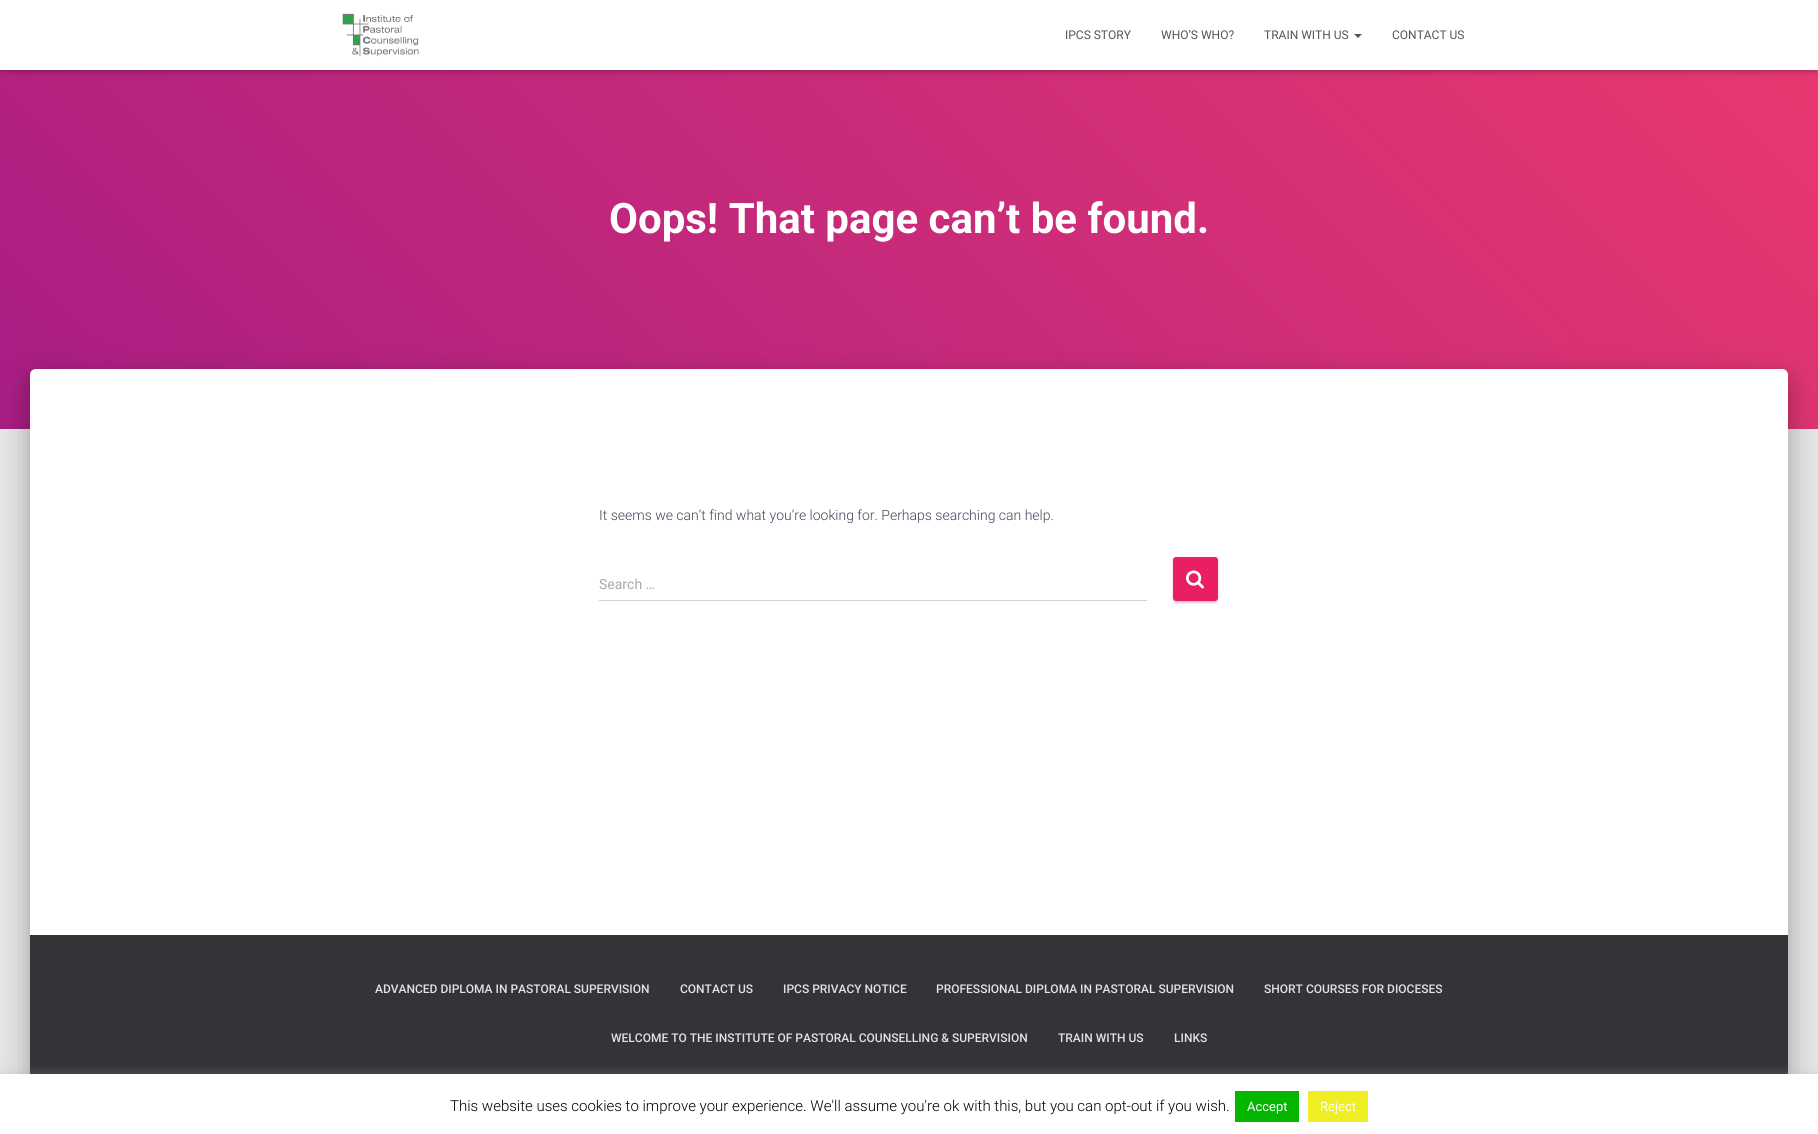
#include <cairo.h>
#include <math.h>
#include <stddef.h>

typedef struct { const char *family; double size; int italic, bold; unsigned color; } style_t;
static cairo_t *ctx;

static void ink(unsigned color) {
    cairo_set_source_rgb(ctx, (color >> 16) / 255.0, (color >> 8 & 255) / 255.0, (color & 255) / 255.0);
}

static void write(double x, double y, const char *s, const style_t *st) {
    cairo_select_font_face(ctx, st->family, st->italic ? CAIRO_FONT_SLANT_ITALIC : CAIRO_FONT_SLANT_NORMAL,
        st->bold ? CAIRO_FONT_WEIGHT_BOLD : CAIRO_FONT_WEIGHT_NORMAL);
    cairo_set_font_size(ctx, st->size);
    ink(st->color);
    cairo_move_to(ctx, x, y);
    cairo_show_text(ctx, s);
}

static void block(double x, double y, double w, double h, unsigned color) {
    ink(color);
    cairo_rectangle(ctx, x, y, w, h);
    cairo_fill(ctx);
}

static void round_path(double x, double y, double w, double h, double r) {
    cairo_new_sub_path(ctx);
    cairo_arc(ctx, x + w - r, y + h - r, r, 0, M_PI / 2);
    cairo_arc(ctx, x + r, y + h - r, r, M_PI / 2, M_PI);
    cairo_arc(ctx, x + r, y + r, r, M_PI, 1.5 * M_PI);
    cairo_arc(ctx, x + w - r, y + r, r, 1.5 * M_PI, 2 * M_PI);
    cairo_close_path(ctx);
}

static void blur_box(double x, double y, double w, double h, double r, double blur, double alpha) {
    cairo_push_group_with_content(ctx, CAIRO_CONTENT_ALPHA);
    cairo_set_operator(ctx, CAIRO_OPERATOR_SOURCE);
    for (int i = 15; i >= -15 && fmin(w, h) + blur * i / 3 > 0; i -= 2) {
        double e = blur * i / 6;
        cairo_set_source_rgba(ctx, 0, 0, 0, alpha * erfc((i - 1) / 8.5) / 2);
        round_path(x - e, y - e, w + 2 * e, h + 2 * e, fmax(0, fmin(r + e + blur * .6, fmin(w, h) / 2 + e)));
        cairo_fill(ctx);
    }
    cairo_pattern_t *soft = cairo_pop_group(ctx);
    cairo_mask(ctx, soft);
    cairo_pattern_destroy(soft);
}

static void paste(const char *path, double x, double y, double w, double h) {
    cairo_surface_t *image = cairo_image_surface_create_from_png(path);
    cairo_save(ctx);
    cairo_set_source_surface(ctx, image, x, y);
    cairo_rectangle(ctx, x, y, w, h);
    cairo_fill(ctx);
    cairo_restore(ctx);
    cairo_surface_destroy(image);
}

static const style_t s1 = {"Roboto", 12, 0, 0, 0x555555};
static const style_t s2 = {"Roboto", 42, 0, 1, 0xffffff};
static const style_t s3 = {"Roboto Light", 14, 0, 0, 0x3c4858};
static const style_t s4 = {"Roboto", 14, 0, 0, 0xaaaaaa};
static const style_t s5 = {"Roboto Medium", 12, 0, 0, 0xe2e3e3};
static const style_t s6 = {"Roboto Light", 15, 0, 0, 0x000000};
static const style_t s7 = {"Roboto", 13, 0, 0, 0xffffff};

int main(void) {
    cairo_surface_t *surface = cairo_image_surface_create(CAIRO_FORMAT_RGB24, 1818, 1134);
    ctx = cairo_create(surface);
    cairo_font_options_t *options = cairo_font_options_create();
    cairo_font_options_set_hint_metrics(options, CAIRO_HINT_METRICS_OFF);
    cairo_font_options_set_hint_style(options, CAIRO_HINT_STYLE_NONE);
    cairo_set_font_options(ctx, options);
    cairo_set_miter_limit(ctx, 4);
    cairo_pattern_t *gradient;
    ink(0xe5e5e5);
    cairo_paint(ctx);
    gradient = cairo_pattern_create_linear(347, 776, 1471, -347);
    cairo_pattern_add_color_stop_rgba(gradient, 0, 0.659, 0.114, 0.518, 1);
    cairo_pattern_add_color_stop_rgba(gradient, 1, 0.918, 0.224, 0.435, 1);
    cairo_set_source(ctx, gradient);
    cairo_pattern_destroy(gradient);
    cairo_rectangle(ctx, 0, 70, 1818, 359);
    cairo_fill(ctx);
    ink(0x000000);
    blur_box(2, 6, 1814, 66, 0, 2.5, 0.1);
    blur_box(0, 1, 1818, 70, 0, 5, 0.12);
    blur_box(6, 7, 1806, 58, 0, 5, 0.42);
    block(0, 0, 1818, 70, 0xffffff);
    paste("pic1.png", 342, 13, 77, 44);
    write(1065, 39, "IPCS STORY", &s1);
    write(1161, 39, "WHO’S WHO?", &s1);
    write(1264, 39, "TRAIN WITH US", &s1);
    cairo_new_path(ctx);
    cairo_move_to(ctx, 1354, 34);
    cairo_line_to(ctx, 1362, 34);
    cairo_line_to(ctx, 1358, 38);
    cairo_close_path(ctx);
    cairo_fill(ctx);
    write(1392, 39, "CONTACT US", &s1);
    write(609, 233, "Oops! That page can’t be found.", &s2);
    ink(0x000000);
    blur_box(35, 382, 1748, 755, 1, 5, 0.2);
    blur_box(25, 370, 1768, 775, 11, 15, 0.12);
    blur_box(28, 383, 1762, 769, 8, 12, 0.14);
    ink(0xffffff);
    cairo_new_path(ctx);
    cairo_move_to(ctx, 36, 369);
    cairo_line_to(ctx, 1782, 369);
    cairo_curve_to(ctx, 1785.5, 369, 1788, 371.5, 1788, 375);
    cairo_line_to(ctx, 1788, 1134);
    cairo_line_to(ctx, 30, 1134);
    cairo_line_to(ctx, 30, 375);
    cairo_curve_to(ctx, 30, 371.5, 32.5, 369, 36, 369);
    cairo_close_path(ctx);
    cairo_fill(ctx);
    write(599, 520, "It seems we can’t find what you’re looking for. Perhaps searching can help.", &s3);
    write(599, 589, "Search …", &s4);
    block(599, 600, 548, 1, 0xd2d2d2);
    ink(0xe91e63);
    blur_box(1173, 558, 45, 44, 3, 2.5, 0.12);
    blur_box(1175, 562, 41, 40, 1, 0.5, 0.2);
    blur_box(1173, 559, 45, 44, 3, 1, 0.14);
    ink(0xe91e63);
    round_path(1173, 557, 45, 44, 3);
    cairo_fill(ctx);
    paste("pic2.png", 1186, 570, 18, 19);
    block(30, 935, 1758, 139, 0x323437);
    write(375, 993, "ADVANCED DIPLOMA IN PASTORAL SUPERVISION", &s5);
    write(680, 993, "CONTACT US", &s5);
    write(783, 993, "IPCS PRIVACY NOTICE", &s5);
    write(936, 993, "PROFESSIONAL DIPLOMA IN PASTORAL SUPERVISION", &s5);
    write(1264, 993, "SHORT COURSES FOR DIOCESES", &s5);
    write(611, 1042, "WELCOME TO THE INSTITUTE OF PASTORAL COUNSELLING & SUPERVISION", &s5);
    write(1058, 1042, "TRAIN WITH US", &s5);
    write(1174, 1042, "LINKS", &s5);
    ink(0xacabab);
    blur_box(0, 1073, 1818, 60, 0, 5, 0.3);
    block(0, 1074, 1818, 60, 0xffffff);
    write(450, 1111, "This website uses cookies to improve your experience. We'll assume you're ok with this, but you can opt-out if you wish.", &s6);
    block(1235, 1091, 64, 31, 0x03b700);
    write(1247, 1111, "Accept", &s7);
    block(1308, 1091, 60, 31, 0xeeee22);
    write(1320, 1111, "Reject", &s7);
    cairo_surface_write_to_png(surface, "screenshot.png");
    cairo_font_options_destroy(options);
    cairo_destroy(ctx);
    cairo_surface_destroy(surface);
    return 0;
}
